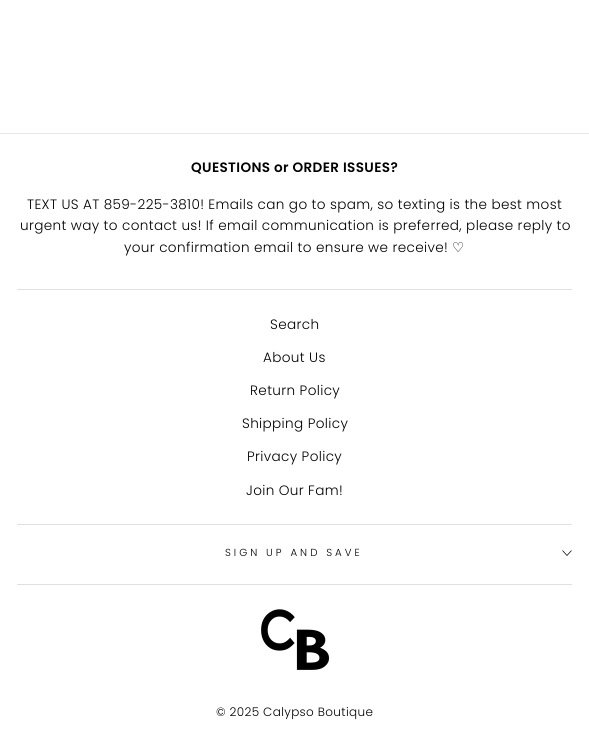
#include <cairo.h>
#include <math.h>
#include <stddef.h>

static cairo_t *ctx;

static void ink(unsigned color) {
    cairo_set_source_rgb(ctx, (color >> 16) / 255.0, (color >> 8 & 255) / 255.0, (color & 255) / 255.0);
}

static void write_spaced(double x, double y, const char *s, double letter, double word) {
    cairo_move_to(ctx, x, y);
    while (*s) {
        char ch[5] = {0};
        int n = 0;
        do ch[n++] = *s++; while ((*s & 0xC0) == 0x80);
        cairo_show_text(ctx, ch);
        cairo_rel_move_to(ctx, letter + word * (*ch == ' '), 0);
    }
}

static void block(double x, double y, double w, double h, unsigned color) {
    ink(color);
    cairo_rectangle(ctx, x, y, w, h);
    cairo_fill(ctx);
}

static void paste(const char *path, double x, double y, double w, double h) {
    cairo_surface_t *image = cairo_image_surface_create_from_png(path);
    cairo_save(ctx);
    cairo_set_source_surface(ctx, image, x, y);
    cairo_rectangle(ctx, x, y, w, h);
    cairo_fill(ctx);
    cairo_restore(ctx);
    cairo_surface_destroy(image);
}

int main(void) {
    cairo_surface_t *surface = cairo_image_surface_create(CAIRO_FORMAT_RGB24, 589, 744);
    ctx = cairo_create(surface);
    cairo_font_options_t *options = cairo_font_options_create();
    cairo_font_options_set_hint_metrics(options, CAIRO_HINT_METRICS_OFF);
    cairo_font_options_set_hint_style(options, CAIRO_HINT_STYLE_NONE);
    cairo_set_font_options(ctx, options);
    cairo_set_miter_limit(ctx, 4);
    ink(0xffffff);
    cairo_paint(ctx);
    block(0, 133, 589, 1, 0xe8e8e1);
    cairo_select_font_face(ctx, "Poppins SemiBold", CAIRO_FONT_SLANT_NORMAL, CAIRO_FONT_WEIGHT_NORMAL);
    cairo_set_font_size(ctx, 13.6);
    ink(0x000000);
    write_spaced(191, 172, "QUESTIONS or ORDER ISSUES?", 0.35, 0);
    cairo_select_font_face(ctx, "Poppins Light", CAIRO_FONT_SLANT_NORMAL, CAIRO_FONT_WEIGHT_NORMAL);
    write_spaced(27, 209, "TEXT US AT 859-225-3810! Emails can go to spam, so texting is the best most", 0.35, 0);
    write_spaced(20, 230, "urgent way to contact us! If email communication is preferred, please reply to", 0.35, 0);
    write_spaced(124, 252, "your confirmation email to ensure we receive!", 0.35, 0);
    cairo_select_font_face(ctx, "DejaVu Sans", CAIRO_FONT_SLANT_NORMAL, CAIRO_FONT_WEIGHT_NORMAL);
    write_spaced(452, 252, "♡", 0.35, 0);
    block(17, 289, 555, 1, 0xe0e0e0);
    cairo_select_font_face(ctx, "Poppins Light", CAIRO_FONT_SLANT_NORMAL, CAIRO_FONT_WEIGHT_NORMAL);
    ink(0x000000);
    write_spaced(270, 329, "Search", 0.35, 0);
    write_spaced(263, 362, "About Us", 0.35, 0);
    write_spaced(250, 395, "Return Policy", 0.35, 0);
    write_spaced(242, 428, "Shipping Policy", 0.35, 0);
    write_spaced(247, 461, "Privacy Policy", 0.35, 0);
    write_spaced(246, 495, "Join Our Fam!", 0.35, 0);
    block(17, 524, 555, 1, 0xe0e0e0);
    cairo_set_font_size(ctx, 10.25);
    ink(0x000000);
    write_spaced(225, 556, "SIGN UP AND SAVE", 3, 0);
    cairo_new_path(ctx);
    cairo_move_to(ctx, 562.5, 550.5);
    cairo_line_to(ctx, 567, 555.5);
    cairo_line_to(ctx, 571.5, 550.5);
    cairo_set_line_width(ctx, 0.7);
    cairo_stroke(ctx);
    block(17, 584, 555, 1, 0xe0e0e0);
    paste("pic1.png", 261, 609, 69, 61);
    cairo_set_font_size(ctx, 12);
    ink(0x000000);
    write_spaced(216, 716, "© 2025 Calypso Boutique", 0.35, 0);
    cairo_surface_write_to_png(surface, "screenshot.png");
    cairo_font_options_destroy(options);
    cairo_destroy(ctx);
    cairo_surface_destroy(surface);
    return 0;
}
